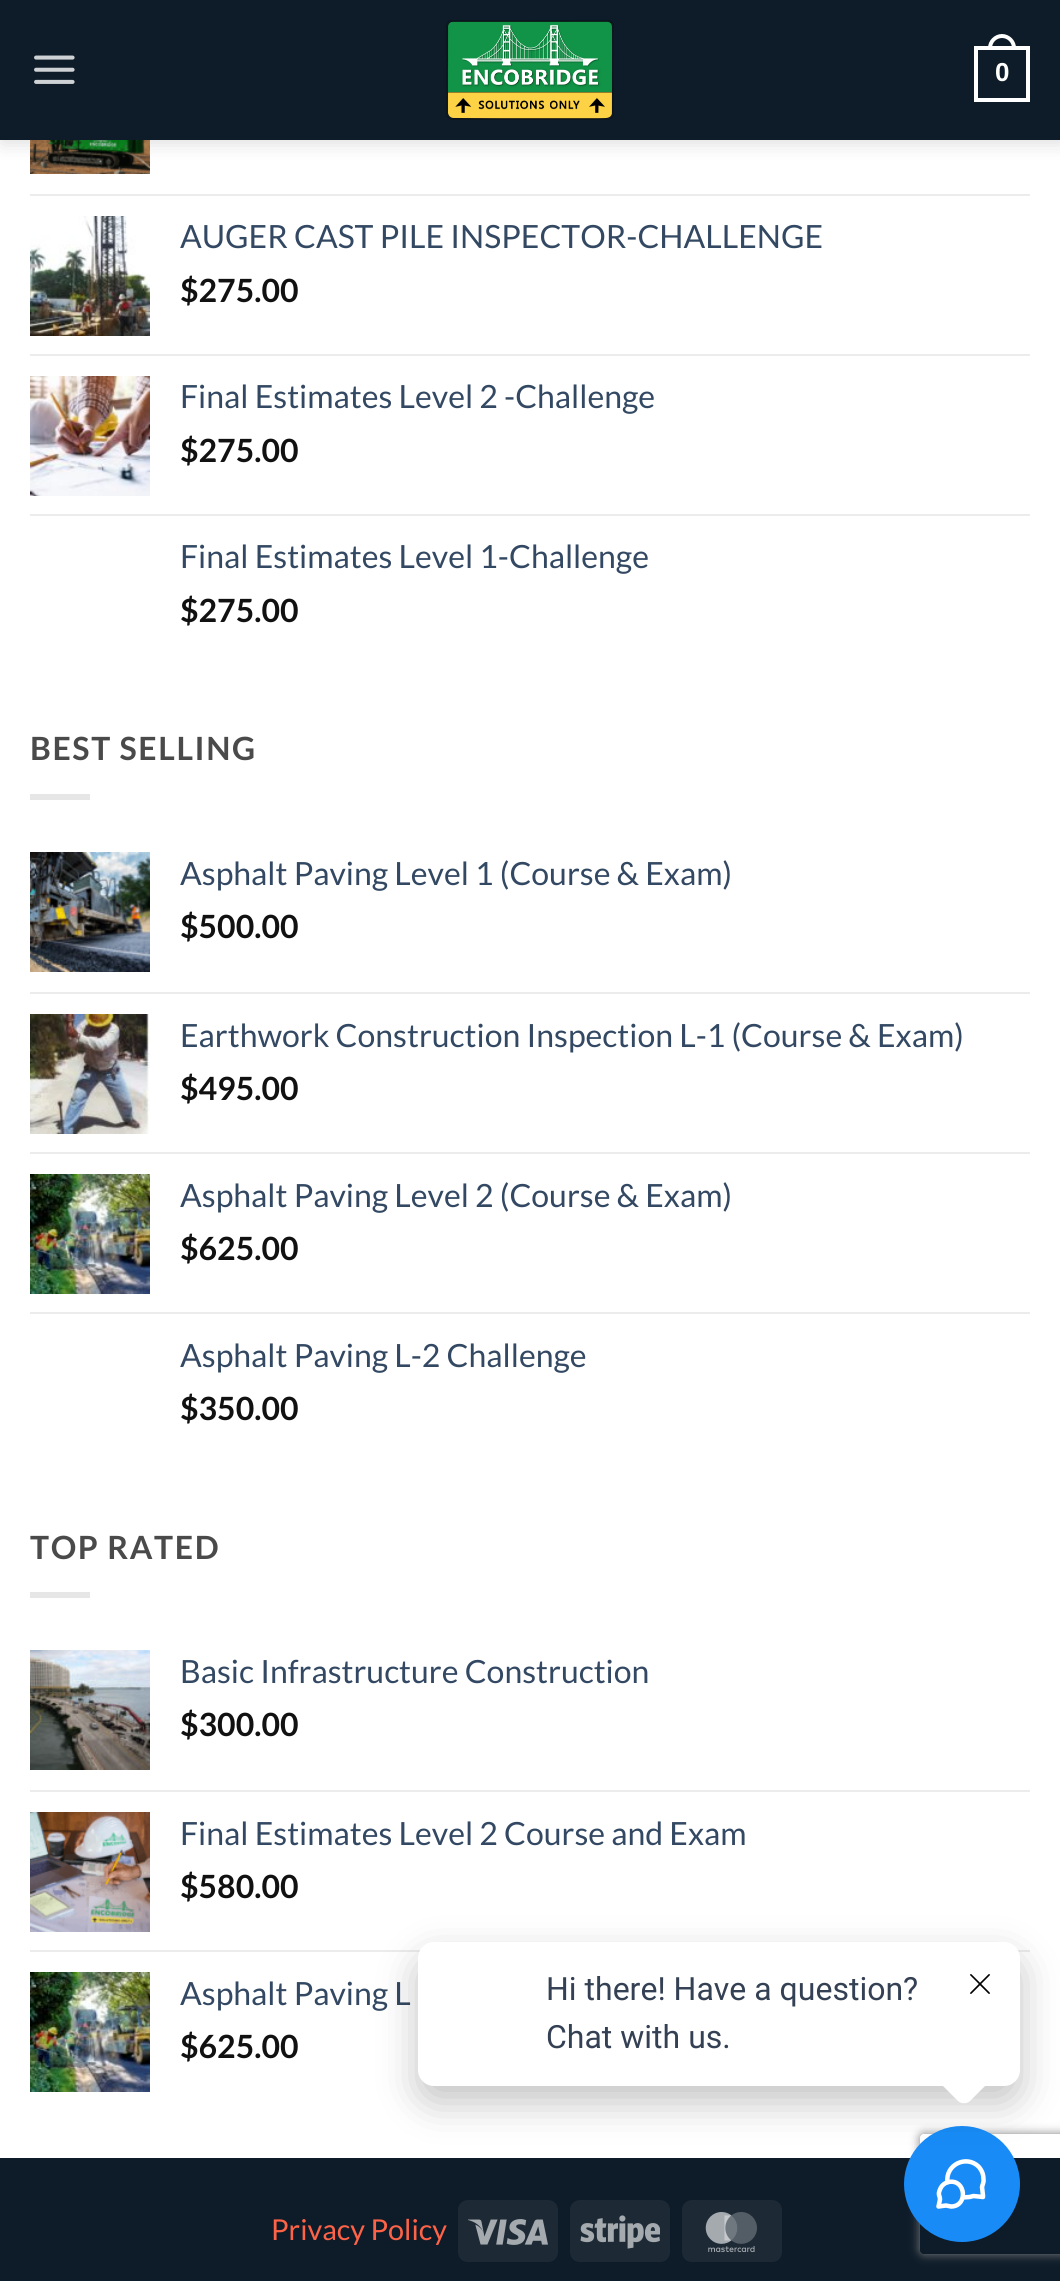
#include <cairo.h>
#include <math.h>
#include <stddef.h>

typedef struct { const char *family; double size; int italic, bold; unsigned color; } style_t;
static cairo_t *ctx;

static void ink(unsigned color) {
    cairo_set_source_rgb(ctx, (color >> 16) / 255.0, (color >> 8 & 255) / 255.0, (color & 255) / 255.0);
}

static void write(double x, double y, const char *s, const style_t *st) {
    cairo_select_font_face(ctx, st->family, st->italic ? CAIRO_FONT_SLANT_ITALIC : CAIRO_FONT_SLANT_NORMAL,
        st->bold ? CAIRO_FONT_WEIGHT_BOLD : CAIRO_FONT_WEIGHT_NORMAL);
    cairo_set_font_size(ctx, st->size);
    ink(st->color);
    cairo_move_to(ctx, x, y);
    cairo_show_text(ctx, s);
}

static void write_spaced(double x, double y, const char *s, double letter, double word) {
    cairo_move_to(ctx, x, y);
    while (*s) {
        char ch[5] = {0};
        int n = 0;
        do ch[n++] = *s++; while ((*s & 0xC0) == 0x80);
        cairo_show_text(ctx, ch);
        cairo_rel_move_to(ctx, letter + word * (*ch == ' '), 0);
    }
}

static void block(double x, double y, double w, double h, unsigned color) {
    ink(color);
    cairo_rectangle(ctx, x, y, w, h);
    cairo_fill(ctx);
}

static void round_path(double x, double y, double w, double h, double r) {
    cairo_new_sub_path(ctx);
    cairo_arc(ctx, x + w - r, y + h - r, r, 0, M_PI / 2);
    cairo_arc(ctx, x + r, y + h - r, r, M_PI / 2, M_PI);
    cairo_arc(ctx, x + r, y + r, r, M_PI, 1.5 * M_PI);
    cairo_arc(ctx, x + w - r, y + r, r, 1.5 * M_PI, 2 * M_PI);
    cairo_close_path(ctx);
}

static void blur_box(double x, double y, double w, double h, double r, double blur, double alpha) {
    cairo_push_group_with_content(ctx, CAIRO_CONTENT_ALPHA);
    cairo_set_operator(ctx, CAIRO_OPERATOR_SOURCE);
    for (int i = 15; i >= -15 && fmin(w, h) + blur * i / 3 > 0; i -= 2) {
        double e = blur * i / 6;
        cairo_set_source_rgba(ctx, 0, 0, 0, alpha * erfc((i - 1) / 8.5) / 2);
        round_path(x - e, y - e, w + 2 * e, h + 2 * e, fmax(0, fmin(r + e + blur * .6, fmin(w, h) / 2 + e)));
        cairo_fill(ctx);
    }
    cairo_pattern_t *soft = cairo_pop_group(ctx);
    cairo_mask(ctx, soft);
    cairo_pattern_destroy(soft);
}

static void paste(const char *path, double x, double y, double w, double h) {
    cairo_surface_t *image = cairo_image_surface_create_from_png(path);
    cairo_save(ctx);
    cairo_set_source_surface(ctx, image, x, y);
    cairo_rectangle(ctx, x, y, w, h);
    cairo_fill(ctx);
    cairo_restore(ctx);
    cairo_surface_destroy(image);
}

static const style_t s1 = {"Liberation Sans", 26, 0, 1, 0xffffff};
static const style_t s2 = {"Lato", 32, 0, 0, 0x334862};
static const style_t s3 = {"Lato", 32, 0, 1, 0x111111};
static const style_t s4 = {"Lato", 28.75, 0, 0, 0xff6347};
static const style_t s5 = {"Roboto", 32, 0, 0, 0x344054};

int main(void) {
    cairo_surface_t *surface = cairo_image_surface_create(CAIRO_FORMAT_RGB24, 1060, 2281);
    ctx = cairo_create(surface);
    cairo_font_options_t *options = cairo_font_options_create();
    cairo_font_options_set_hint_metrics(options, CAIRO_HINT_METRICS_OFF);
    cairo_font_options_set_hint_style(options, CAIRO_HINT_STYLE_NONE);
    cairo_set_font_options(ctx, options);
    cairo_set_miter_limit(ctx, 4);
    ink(0xffffff);
    cairo_paint(ctx);
    paste("pic3.png", 30, 140, 120, 34);
    ink(0x000000);
    blur_box(2, 2, 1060, 140, 0, 10, 0.15);
    block(0, 0, 1060, 140, 0x0e1c29);
    paste("pic1.png", 34, 55, 41, 29);
    paste("pic2.png", 446, 20, 168, 100);
    cairo_rectangle(ctx, 976, 48, 52, 52);
    ink(0xffffff);
    cairo_set_line_width(ctx, 4);
    cairo_stroke(ctx);
    cairo_set_fill_rule(ctx, CAIRO_FILL_RULE_EVEN_ODD);
    cairo_new_path(ctx);
    cairo_move_to(ctx, 1002, 34);
    cairo_curve_to(ctx, 1009.5, 34, 1016, 40.5, 1016, 48);
    cairo_line_to(ctx, 1016, 50);
    cairo_line_to(ctx, 988, 50);
    cairo_line_to(ctx, 988, 48);
    cairo_curve_to(ctx, 988, 40.5, 994.5, 34, 1002, 34);
    cairo_close_path(ctx);
    cairo_move_to(ctx, 1002, 38);
    cairo_curve_to(ctx, 1007.5, 38, 1012, 42.5, 1012, 48);
    cairo_line_to(ctx, 1012, 50);
    cairo_line_to(ctx, 992, 50);
    cairo_line_to(ctx, 992, 48);
    cairo_curve_to(ctx, 992, 42.5, 996.5, 38, 1002, 38);
    cairo_close_path(ctx);
    cairo_fill(ctx);
    write(995, 81, "0", &s1);
    block(30, 194, 1000, 2, 0xececec);
    paste("pic4.png", 30, 216, 120, 120);
    write(180, 248, "AUGER CAST PILE INSPECTOR-CHALLENGE", &s2);
    write(180, 302, "$275.00", &s3);
    block(30, 354, 1000, 2, 0xececec);
    paste("pic5.png", 30, 376, 120, 120);
    write(180, 408, "Final Estimates Level 2 -Challenge", &s2);
    write(180, 462, "$275.00", &s3);
    block(30, 514, 1000, 2, 0xececec);
    write(180, 568, "Final Estimates Level 1-Challenge", &s2);
    write(180, 622, "$275.00", &s3);
    ink(0x4a4a4a);
    write_spaced(30, 760, "BEST SELLING", 1.6, 0);
    block(30, 794, 60, 6, 0xe6e6e6);
    paste("pic6.png", 30, 852, 120, 120);
    write(180, 885, "Asphalt Paving Level 1 (Course & Exam)", &s2);
    write(180, 938, "$500.00", &s3);
    block(30, 992, 1000, 2, 0xececec);
    paste("pic7.png", 30, 1014, 120, 120);
    write(180, 1047, "Earthwork Construction Inspection L-1 (Course & Exam)", &s2);
    write(180, 1100, "$495.00", &s3);
    block(30, 1152, 1000, 2, 0xececec);
    paste("pic8.png", 30, 1174, 120, 120);
    write(180, 1207, "Asphalt Paving Level 2 (Course & Exam)", &s2);
    write(180, 1260, "$625.00", &s3);
    block(30, 1312, 1000, 2, 0xececec);
    write(180, 1367, "Asphalt Paving L-2 Challenge", &s2);
    write(180, 1420, "$350.00", &s3);
    ink(0x4a4a4a);
    write_spaced(30, 1559, "TOP RATED", 1.6, 0);
    block(30, 1592, 60, 6, 0xe6e6e6);
    paste("pic9.png", 30, 1650, 120, 120);
    write(180, 1683, "Basic Infrastructure Construction", &s2);
    write(180, 1736, "$300.00", &s3);
    block(30, 1790, 1000, 2, 0xececec);
    paste("pic10.png", 30, 1812, 120, 120);
    write(180, 1845, "Final Estimates Level 2 Course and Exam", &s2);
    write(180, 1898, "$580.00", &s3);
    block(30, 1950, 1000, 2, 0xececec);
    paste("pic11.png", 30, 1972, 120, 120);
    write(180, 2005, "Asphalt Paving L", &s2);
    write(180, 2058, "$625.00", &s3);
    block(0, 2158, 1060, 123, 0x0e1c29);
    write(271, 2240, "Privacy Policy", &s4);
    ink(0x1d2a36);
    round_path(458, 2200, 100, 62, 10);
    cairo_fill(ctx);
    paste("pic12.png", 468, 2219, 80, 26);
    round_path(570, 2200, 100, 62, 10);
    cairo_fill(ctx);
    paste("pic13.png", 580, 2215, 80, 34);
    round_path(682, 2200, 100, 62, 10);
    cairo_fill(ctx);
    paste("pic14.png", 705, 2212, 52, 40);
    cairo_save(ctx);
    cairo_new_path(ctx);
    cairo_move_to(ctx, 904, 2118);
    cairo_line_to(ctx, 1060, 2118);
    cairo_line_to(ctx, 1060, 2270);
    cairo_line_to(ctx, 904, 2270);
    cairo_close_path(ctx);
    cairo_move_to(ctx, 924, 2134);
    cairo_line_to(ctx, 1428, 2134);
    cairo_curve_to(ctx, 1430, 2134, 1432, 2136, 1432, 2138);
    cairo_line_to(ctx, 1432, 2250);
    cairo_curve_to(ctx, 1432, 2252, 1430, 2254, 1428, 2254);
    cairo_line_to(ctx, 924, 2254);
    cairo_curve_to(ctx, 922, 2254, 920, 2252, 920, 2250);
    cairo_line_to(ctx, 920, 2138);
    cairo_curve_to(ctx, 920, 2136, 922, 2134, 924, 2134);
    cairo_close_path(ctx);
    cairo_clip(ctx);
    ink(0x808080);
    blur_box(920, 2134, 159, 120, 4, 5, 1);
    cairo_restore(ctx);
    ink(0x188bf6);
    cairo_arc(ctx, 962, 2184, 58, 0, 2 * M_PI);
    cairo_fill(ctx);
    cairo_new_path(ctx);
    cairo_move_to(ctx, 947.5, 2182.5);
    cairo_curve_to(ctx, 945, 2165, 966, 2154.5, 978.5, 2166.5);
    cairo_curve_to(ctx, 982, 2170.5, 983.5, 2174.5, 983.5, 2179.5);
    cairo_curve_to(ctx, 984, 2182, 982.5, 2184.5, 982, 2187);
    cairo_line_to(ctx, 983, 2195.5);
    cairo_line_to(ctx, 983, 2197);
    cairo_line_to(ctx, 973.5, 2196);
    cairo_line_to(ctx, 969.5, 2197);
    cairo_line_to(ctx, 962.5, 2197.5);
    cairo_move_to(ctx, 951, 2206.5);
    cairo_curve_to(ctx, 968.5, 2206.5, 966, 2178.5, 948.5, 2182);
    cairo_curve_to(ctx, 944.5, 2183, 941.5, 2185.5, 940, 2189.5);
    cairo_curve_to(ctx, 937.5, 2195, 940, 2195.5, 940, 2199.5);
    cairo_line_to(ctx, 938.5, 2206.5);
    cairo_line_to(ctx, 946, 2205.5);
    cairo_close_path(ctx);
    ink(0xffffff);
    cairo_set_line_width(ctx, 4.5);
    cairo_set_line_cap(ctx, CAIRO_LINE_CAP_ROUND);
    cairo_set_line_join(ctx, CAIRO_LINE_JOIN_ROUND);
    cairo_stroke(ctx);
    ink(0x000000);
    blur_box(418, 1958, 602, 144, 16, 20, 0.24);
    ink(0xffffff);
    round_path(418, 1942, 602, 144, 16);
    cairo_fill(ctx);
    write(546, 2000, "Hi there! Have a question?", &s5);
    write(546, 2048, "Chat with us.", &s5);
    ink(0xffffff);
    cairo_set_fill_rule(ctx, CAIRO_FILL_RULE_WINDING);
    cairo_new_path(ctx);
    cairo_move_to(ctx, 970, 2055);
    cairo_line_to(ctx, 987, 2072);
    cairo_curve_to(ctx, 990, 2075, 990, 2081, 987, 2084);
    cairo_line_to(ctx, 970, 2101);
    cairo_curve_to(ctx, 967, 2104, 961, 2104, 958, 2101);
    cairo_line_to(ctx, 941, 2084);
    cairo_curve_to(ctx, 938, 2081, 938, 2075, 941, 2072);
    cairo_line_to(ctx, 958, 2055);
    cairo_curve_to(ctx, 961, 2052, 967, 2052, 970, 2055);
    cairo_close_path(ctx);
    cairo_fill(ctx);
    paste("pic15.png", 970, 1974, 20, 20);
    cairo_surface_write_to_png(surface, "screenshot.png");
    cairo_font_options_destroy(options);
    cairo_destroy(ctx);
    cairo_surface_destroy(surface);
    return 0;
}
